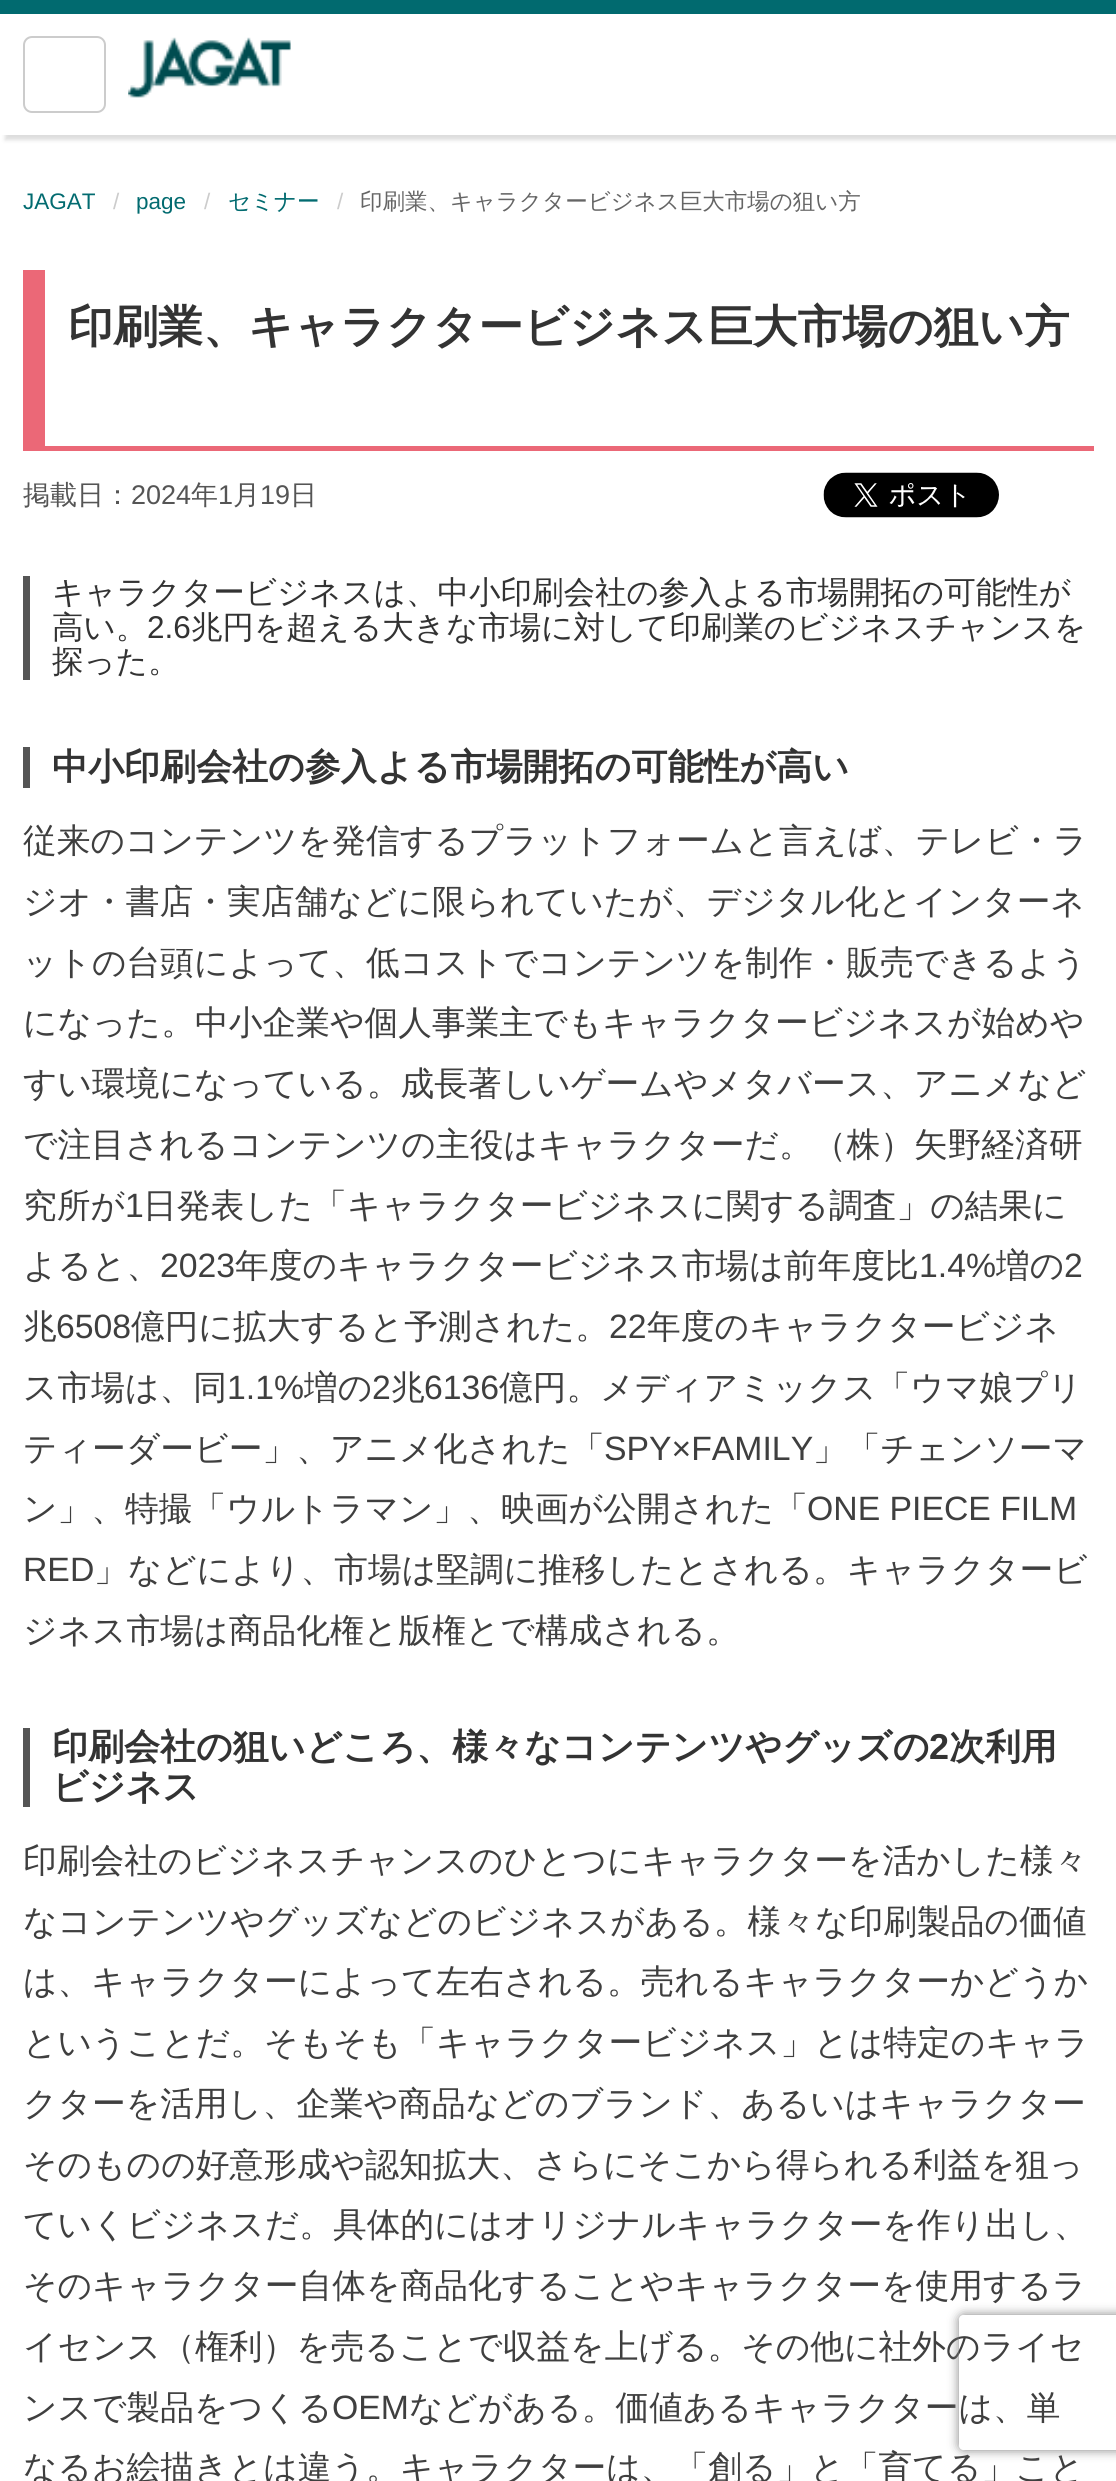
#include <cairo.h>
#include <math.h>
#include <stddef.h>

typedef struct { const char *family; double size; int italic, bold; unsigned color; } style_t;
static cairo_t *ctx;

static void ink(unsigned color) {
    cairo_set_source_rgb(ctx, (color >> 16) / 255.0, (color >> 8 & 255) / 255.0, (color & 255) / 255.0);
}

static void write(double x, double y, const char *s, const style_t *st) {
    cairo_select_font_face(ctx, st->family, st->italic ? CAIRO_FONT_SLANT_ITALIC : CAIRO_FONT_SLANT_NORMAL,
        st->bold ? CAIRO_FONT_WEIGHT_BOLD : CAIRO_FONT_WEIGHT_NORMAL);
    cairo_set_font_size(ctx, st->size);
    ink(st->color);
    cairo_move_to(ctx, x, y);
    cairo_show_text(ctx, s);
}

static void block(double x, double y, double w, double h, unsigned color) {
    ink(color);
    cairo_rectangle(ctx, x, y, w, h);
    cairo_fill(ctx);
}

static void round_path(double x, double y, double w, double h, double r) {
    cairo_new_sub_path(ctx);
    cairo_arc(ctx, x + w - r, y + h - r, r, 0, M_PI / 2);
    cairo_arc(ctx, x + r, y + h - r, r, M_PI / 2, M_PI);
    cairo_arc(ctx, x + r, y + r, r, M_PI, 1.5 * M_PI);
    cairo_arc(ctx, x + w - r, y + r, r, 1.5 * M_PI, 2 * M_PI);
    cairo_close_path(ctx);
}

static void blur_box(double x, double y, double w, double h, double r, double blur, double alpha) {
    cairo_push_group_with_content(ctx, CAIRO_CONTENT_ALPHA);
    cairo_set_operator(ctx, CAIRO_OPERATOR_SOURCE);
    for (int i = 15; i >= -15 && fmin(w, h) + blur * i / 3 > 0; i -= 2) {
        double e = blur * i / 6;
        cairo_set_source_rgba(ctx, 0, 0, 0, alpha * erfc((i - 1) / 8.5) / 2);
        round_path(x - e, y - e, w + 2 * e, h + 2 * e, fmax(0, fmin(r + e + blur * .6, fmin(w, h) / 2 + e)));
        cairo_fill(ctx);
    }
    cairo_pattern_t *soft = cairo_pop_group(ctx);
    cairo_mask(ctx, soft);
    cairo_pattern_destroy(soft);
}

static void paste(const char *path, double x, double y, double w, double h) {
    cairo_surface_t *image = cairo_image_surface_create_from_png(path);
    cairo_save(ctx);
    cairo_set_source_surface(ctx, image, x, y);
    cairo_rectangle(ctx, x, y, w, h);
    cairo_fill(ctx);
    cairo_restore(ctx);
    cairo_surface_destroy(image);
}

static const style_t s1 = {"Liberation Sans", 22.5, 0, 0, 0x026b70};
static const style_t s2 = {"Liberation Sans", 22.5, 0, 0, 0xcccccc};
static const style_t s3 = {"WenQuanYi Zen Hei Medium", 22.5, 0, 0, 0x026b70};
static const style_t s4 = {"WenQuanYi Zen Hei Medium", 22.5, 0, 0, 0x656565};
static const style_t s5 = {"WenQuanYi Zen Hei", 45, 0, 1, 0x333333};
static const style_t s6 = {"WenQuanYi Zen Hei Medium", 27, 0, 0, 0x555555};
static const style_t s7 = {"Liberation Sans", 27, 0, 0, 0x555555};
static const style_t s8 = {"WenQuanYi Zen Hei Medium", 31.5, 0, 0, 0x333333};
static const style_t s9 = {"Liberation Sans", 31.5, 0, 0, 0x333333};
static const style_t s10 = {"WenQuanYi Zen Hei", 36, 0, 1, 0x333333};
static const style_t s11 = {"WenQuanYi Zen Hei Medium", 33.75, 0, 0, 0x3f3f3f};
static const style_t s12 = {"Liberation Sans", 33.75, 0, 0, 0x3f3f3f};
static const style_t s13 = {"Liberation Sans", 36, 0, 1, 0x333333};

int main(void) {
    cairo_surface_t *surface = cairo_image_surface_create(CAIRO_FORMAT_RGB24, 1116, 2481);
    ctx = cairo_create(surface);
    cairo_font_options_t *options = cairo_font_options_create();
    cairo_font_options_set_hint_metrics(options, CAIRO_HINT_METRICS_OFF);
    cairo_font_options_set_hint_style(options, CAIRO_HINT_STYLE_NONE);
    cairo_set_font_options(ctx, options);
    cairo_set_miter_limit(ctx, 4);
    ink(0xffffff);
    cairo_paint(ctx);
    block(0, 0, 1116, 14, 0x016a6f);
    cairo_save(ctx);
    cairo_rectangle(ctx, 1, 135, 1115, 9);
    cairo_clip(ctx);
    ink(0xdddddd);
    blur_box(5, 18, 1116, 122, 0, 2, 1);
    cairo_restore(ctx);
    round_path(24, 37, 81, 75, 8);
    ink(0xcccccc);
    cairo_stroke(ctx);
    paste("pic1.png", 128, 37, 163, 61);
    write(23, 209, "JAGAT", &s1);
    write(113, 209, "/", &s2);
    write(136, 209, "page", &s1);
    write(204, 209, "/", &s2);
    write(228, 209, "セミナー", &s3);
    write(337, 209, "/", &s2);
    write(360, 209, "印刷業、キャラクタービジネス巨大市場の狙い方", &s4);
    block(23, 446, 1071, 5, 0xeb6877);
    block(23, 270, 22, 176, 0xeb6877);
    write(68, 342, "印刷業、キャラクタービジネス巨大市場の狙い方", &s5);
    write(23, 504, "掲載日：", &s6);
    write(131, 504, "2024", &s7);
    write(191, 504, "年", &s6);
    write(218, 504, "1", &s7);
    write(233, 504, "月", &s6);
    write(260, 504, "19", &s7);
    write(290, 504, "日", &s6);
    paste("pic2.png", 823, 472, 176, 46);
    block(23, 576, 7, 104, 0x555555);
    write(52, 603, "キャラクタービジネスは、中小印刷会社の参入よる市場開拓の可能性が", &s8);
    write(52, 638, "高い。", &s8);
    write(147, 638, "2.6", &s9);
    write(191, 638, "兆円を超える大きな市場に対して印刷業のビジネスチャンスを", &s8);
    write(52, 672, "探った。", &s8);
    block(23, 747, 7, 41, 0x555555);
    write(52, 779, "中小印刷会社の参入よる市場開拓の可能性が高い", &s10);
    write(23, 852, "従来のコンテンツを発信するプラットフォームと言えば、テレビ・ラ", &s11);
    write(23, 913, "ジオ・書店・実店舗などに限られていたが、デジタル化とインターネ", &s11);
    write(23, 974, "ットの台頭によって、低コストでコンテンツを制作・販売できるよう", &s11);
    write(23, 1034, "になった。中小企業や個人事業主でもキャラクタービジネスが始めや", &s11);
    write(23, 1095, "すい環境になっている。成長著しいゲームやメタバース、アニメなど", &s11);
    write(23, 1156, "で注目されるコンテンツの主役はキャラクターだ。（株）矢野経済研", &s11);
    write(23, 1217, "究所が", &s11);
    write(125, 1217, "1", &s12);
    write(143, 1217, "日発表した「キャラクタービジネスに関する調査」の結果に", &s11);
    write(23, 1277, "よると、", &s11);
    write(160, 1277, "2023", &s12);
    write(235, 1277, "年度のキャラクタービジネス市場は前年度比", &s11);
    write(919, 1277, "1.4%", &s12);
    write(996, 1277, "増の", &s11);
    write(1064, 1277, "2", &s12);
    write(23, 1338, "兆", &s11);
    write(56, 1338, "6508", &s12);
    write(131, 1338, "億円に拡大すると予測された。", &s11);
    write(609, 1338, "22", &s12);
    write(647, 1338, "年度のキャラクタービジネ", &s11);
    write(23, 1399, "ス市場は、同", &s11);
    write(227, 1399, "1.1%", &s12);
    write(304, 1399, "増の", &s11);
    write(372, 1399, "2", &s12);
    write(391, 1399, "兆", &s11);
    write(424, 1399, "6136", &s12);
    write(499, 1399, "億円。メディアミックス「ウマ娘プリ", &s11);
    write(23, 1460, "ティーダービー」、アニメ化された「", &s11);
    write(604, 1460, "SPY×FAMILY", &s12);
    write(813, 1460, "」「チェンソーマ", &s11);
    write(23, 1520, "ン」、特撮「ウルトラマン」、映画が公開された「", &s11);
    write(807, 1520, "ONE PIECE FILM", &s12);
    write(23, 1581, "RED", &s12);
    write(94, 1581, "」などにより、市場は堅調に推移したとされる。キャラクタービ", &s11);
    write(23, 1642, "ジネス市場は商品化権と版権とで構成される。", &s11);
    block(23, 1728, 7, 79, 0x555555);
    write(52, 1759, "印刷会社の狙いどころ、様々なコンテンツやグッズの", &s10);
    write(929, 1759, "2", &s13);
    write(949, 1759, "次利用", &s10);
    write(52, 1799, "ビジネス", &s10);
    write(23, 1872, "印刷会社のビジネスチャンスのひとつにキャラクターを活かした様々", &s11);
    write(23, 1933, "なコンテンツやグッズなどのビジネスがある。様々な印刷製品の価値", &s11);
    write(23, 1993, "は、キャラクターによって左右される。売れるキャラクターかどうか", &s11);
    write(23, 2054, "ということだ。そもそも「キャラクタービジネス」とは特定のキャラ", &s11);
    write(23, 2115, "クターを活用し、企業や商品などのブランド、あるいはキャラクター", &s11);
    write(23, 2176, "そのものの好意形成や認知拡大、さらにそこから得られる利益を狙っ", &s11);
    write(23, 2236, "ていくビジネスだ。具体的にはオリジナルキャラクターを作り出し、", &s11);
    write(23, 2297, "そのキャラクター自体を商品化することやキャラクターを使用するラ", &s11);
    write(23, 2358, "イセンス（権利）を売ることで収益を上げる。その他に社外のライセ", &s11);
    write(23, 2419, "ンスで製品をつくる", &s11);
    write(332, 2419, "OEM", &s12);
    write(409, 2419, "などがある。価値あるキャラクターは、単", &s11);
    write(23, 2479, "なるお絵描きとは違う。キャラクターは、「創る」と「育てる」こと", &s11);
    cairo_save(ctx);
    cairo_set_fill_rule(ctx, CAIRO_FILL_RULE_EVEN_ODD);
    cairo_new_path(ctx);
    cairo_move_to(ctx, 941, 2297);
    cairo_line_to(ctx, 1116, 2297);
    cairo_line_to(ctx, 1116, 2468);
    cairo_line_to(ctx, 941, 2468);
    cairo_close_path(ctx);
    cairo_move_to(ctx, 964, 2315);
    cairo_line_to(ctx, 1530, 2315);
    cairo_curve_to(ctx, 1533, 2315, 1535, 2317, 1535, 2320);
    cairo_line_to(ctx, 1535, 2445);
    cairo_curve_to(ctx, 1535, 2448, 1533, 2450, 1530, 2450);
    cairo_line_to(ctx, 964, 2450);
    cairo_curve_to(ctx, 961, 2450, 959, 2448, 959, 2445);
    cairo_line_to(ctx, 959, 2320);
    cairo_curve_to(ctx, 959, 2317, 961, 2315, 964, 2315);
    cairo_close_path(ctx);
    cairo_clip(ctx);
    ink(0x808080);
    blur_box(959, 2315, 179, 135, 5, 5.5, 1);
    cairo_restore(ctx);
    cairo_surface_write_to_png(surface, "screenshot.png");
    cairo_font_options_destroy(options);
    cairo_destroy(ctx);
    cairo_surface_destroy(surface);
    return 0;
}
